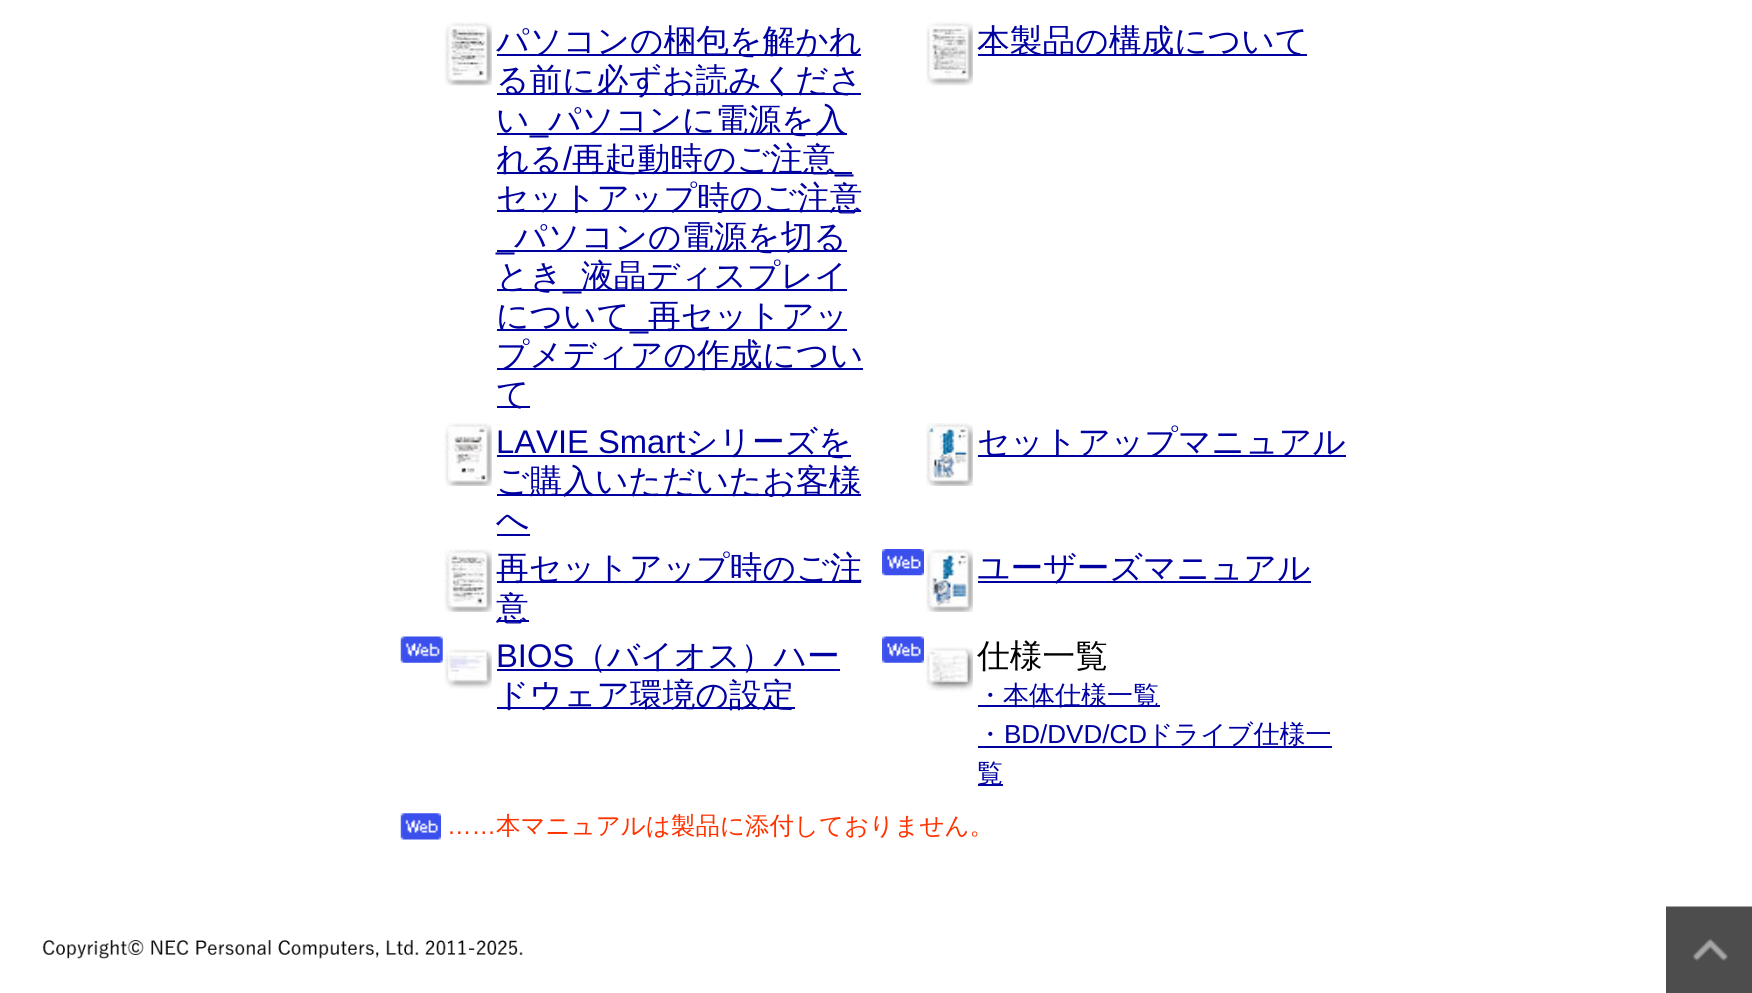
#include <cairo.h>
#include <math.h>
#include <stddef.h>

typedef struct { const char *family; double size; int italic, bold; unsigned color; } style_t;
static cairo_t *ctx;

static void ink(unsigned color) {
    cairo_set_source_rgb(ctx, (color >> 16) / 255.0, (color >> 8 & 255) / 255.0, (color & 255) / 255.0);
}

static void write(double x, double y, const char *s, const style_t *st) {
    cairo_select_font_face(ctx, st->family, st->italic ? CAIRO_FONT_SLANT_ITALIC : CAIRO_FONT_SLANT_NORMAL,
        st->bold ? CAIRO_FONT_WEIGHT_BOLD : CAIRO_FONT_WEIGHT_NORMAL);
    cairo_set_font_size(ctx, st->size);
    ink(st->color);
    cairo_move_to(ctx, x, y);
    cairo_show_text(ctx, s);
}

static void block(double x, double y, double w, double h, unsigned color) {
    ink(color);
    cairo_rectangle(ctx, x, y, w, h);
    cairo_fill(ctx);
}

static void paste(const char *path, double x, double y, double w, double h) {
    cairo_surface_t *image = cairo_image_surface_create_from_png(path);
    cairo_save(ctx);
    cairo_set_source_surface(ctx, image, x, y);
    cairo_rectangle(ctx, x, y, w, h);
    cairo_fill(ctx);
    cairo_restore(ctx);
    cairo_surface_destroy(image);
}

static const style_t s1 = {"WenQuanYi Zen Hei Medium", 32.75, 0, 0, 0x0000a0};
static const style_t s2 = {"Liberation Sans", 32.75, 0, 0, 0x0000a0};
static const style_t s3 = {"WenQuanYi Zen Hei Medium", 32.75, 0, 0, 0x000000};
static const style_t s4 = {"WenQuanYi Zen Hei Medium", 26, 0, 0, 0x0000a0};
static const style_t s5 = {"Liberation Sans", 26, 0, 0, 0x0000a0};
static const style_t s6 = {"Liberation Sans", 24.5, 0, 0, 0xff3300};
static const style_t s7 = {"WenQuanYi Zen Hei Medium", 24.5, 0, 0, 0xff3300};

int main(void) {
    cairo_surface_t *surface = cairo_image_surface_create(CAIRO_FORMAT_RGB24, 1752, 993);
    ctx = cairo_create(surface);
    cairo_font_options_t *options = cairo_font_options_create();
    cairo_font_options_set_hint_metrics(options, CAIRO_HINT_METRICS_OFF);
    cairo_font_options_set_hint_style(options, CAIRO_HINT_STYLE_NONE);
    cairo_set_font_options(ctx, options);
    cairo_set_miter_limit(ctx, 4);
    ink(0xffffff);
    cairo_paint(ctx);
    paste("pic1.png", 444, 22, 48, 64);
    block(497, 54, 364, 2, 0x0000a0);
    write(496, 52, "パソコンの梱包を解かれ", &s1);
    block(497, 93, 364, 2, 0x0000a0);
    write(496, 91, "る前に必ずお読みくださ", &s1);
    write(496, 131, "い", &s1);
    write(530, 131, "_", &s2);
    block(497, 133, 350, 2, 0x0000a0);
    write(548, 131, "パソコンに電源を入", &s1);
    block(497, 172, 355, 2, 0x0000a0);
    write(496, 170, "れる", &s1);
    write(563, 170, "/", &s2);
    write(572, 170, "再起動時のご注意", &s1);
    write(835, 170, "_", &s2);
    block(497, 210, 364, 2, 0x0000a0);
    write(496, 209, "セットアップ時のご注意", &s1);
    write(496, 248, "_", &s2);
    block(497, 250, 350, 2, 0x0000a0);
    write(514, 248, "パソコンの電源を切る", &s1);
    block(497, 289, 350, 2, 0x0000a0);
    write(496, 287, "とき", &s1);
    write(563, 287, "_", &s2);
    write(581, 287, "液晶ディスプレイ", &s1);
    block(497, 329, 350, 2, 0x0000a0);
    write(496, 327, "について", &s1);
    write(648, 327, "再セットアッ", &s1);
    write(630, 327, "_", &s2);
    block(497, 368, 366, 2, 0x0000a0);
    write(496, 366, "プメディアの作成につい", &s1);
    block(497, 406, 33, 2, 0x0000a0);
    write(496, 405, "て", &s1);
    paste("pic2.png", 926, 22, 47, 64);
    block(978, 54, 329, 2, 0x0000a0);
    write(977, 52, "本製品の構成について", &s1);
    paste("pic3.png", 444, 423, 48, 63);
    write(496, 453, "LAVIE Smart", &s2);
    block(497, 455, 354, 2, 0x0000a0);
    write(685, 453, "シリーズを", &s1);
    block(497, 494, 364, 2, 0x0000a0);
    write(496, 492, "ご購入いただいたお客様", &s1);
    write(496, 531, "へ", &s1);
    block(497, 534, 33, 2, 0x0000a0);
    paste("pic4.png", 926, 423, 47, 63);
    block(978, 455, 368, 2, 0x0000a0);
    write(977, 453, "セットアップマニュアル", &s1);
    paste("pic5.png", 444, 549, 48, 63);
    block(497, 581, 364, 2, 0x0000a0);
    write(496, 579, "再セットアップ時のご注", &s1);
    block(497, 620, 32, 2, 0x0000a0);
    write(496, 619, "意", &s1);
    paste("pic6.png", 882, 549, 42, 27);
    paste("pic7.png", 925, 549, 48, 63);
    block(978, 581, 333, 2, 0x0000a0);
    write(977, 579, "ユーザーズマニュアル", &s1);
    paste("pic8.png", 400, 636, 43, 27);
    paste("pic9.png", 444, 649, 48, 40);
    write(496, 667, "BIOS", &s2);
    block(497, 669, 343, 2, 0x0000a0);
    write(574, 667, "（バイオス）ハー", &s1);
    block(497, 707, 298, 2, 0x0000a0);
    write(496, 706, "ドウェア環境の設定", &s1);
    paste("pic10.png", 882, 636, 42, 27);
    paste("pic11.png", 926, 647, 47, 45);
    write(977, 667, "仕様一覧", &s3);
    block(978, 705, 182, 2, 0x0000a0);
    write(977, 704, "・本体仕様一覧", &s4);
    write(977, 743, "・", &s4);
    write(1004, 743, "BD/DVD/CD", &s5);
    block(978, 746, 354, 2, 0x0000a0);
    write(1147, 743, "ドライブ仕様一", &s4);
    block(978, 784, 25, 2, 0x0000a0);
    write(977, 782, "覧", &s4);
    paste("pic12.png", 400, 813, 41, 27);
    write(447, 834, "……", &s6);
    write(496, 834, "本マニュアルは製品に添付しておりません。", &s7);
    paste("pic13.png", 42, 940, 481, 19);
    paste("pic14.png", 1666, 906, 86, 87);
    cairo_surface_write_to_png(surface, "screenshot.png");
    cairo_font_options_destroy(options);
    cairo_destroy(ctx);
    cairo_surface_destroy(surface);
    return 0;
}
